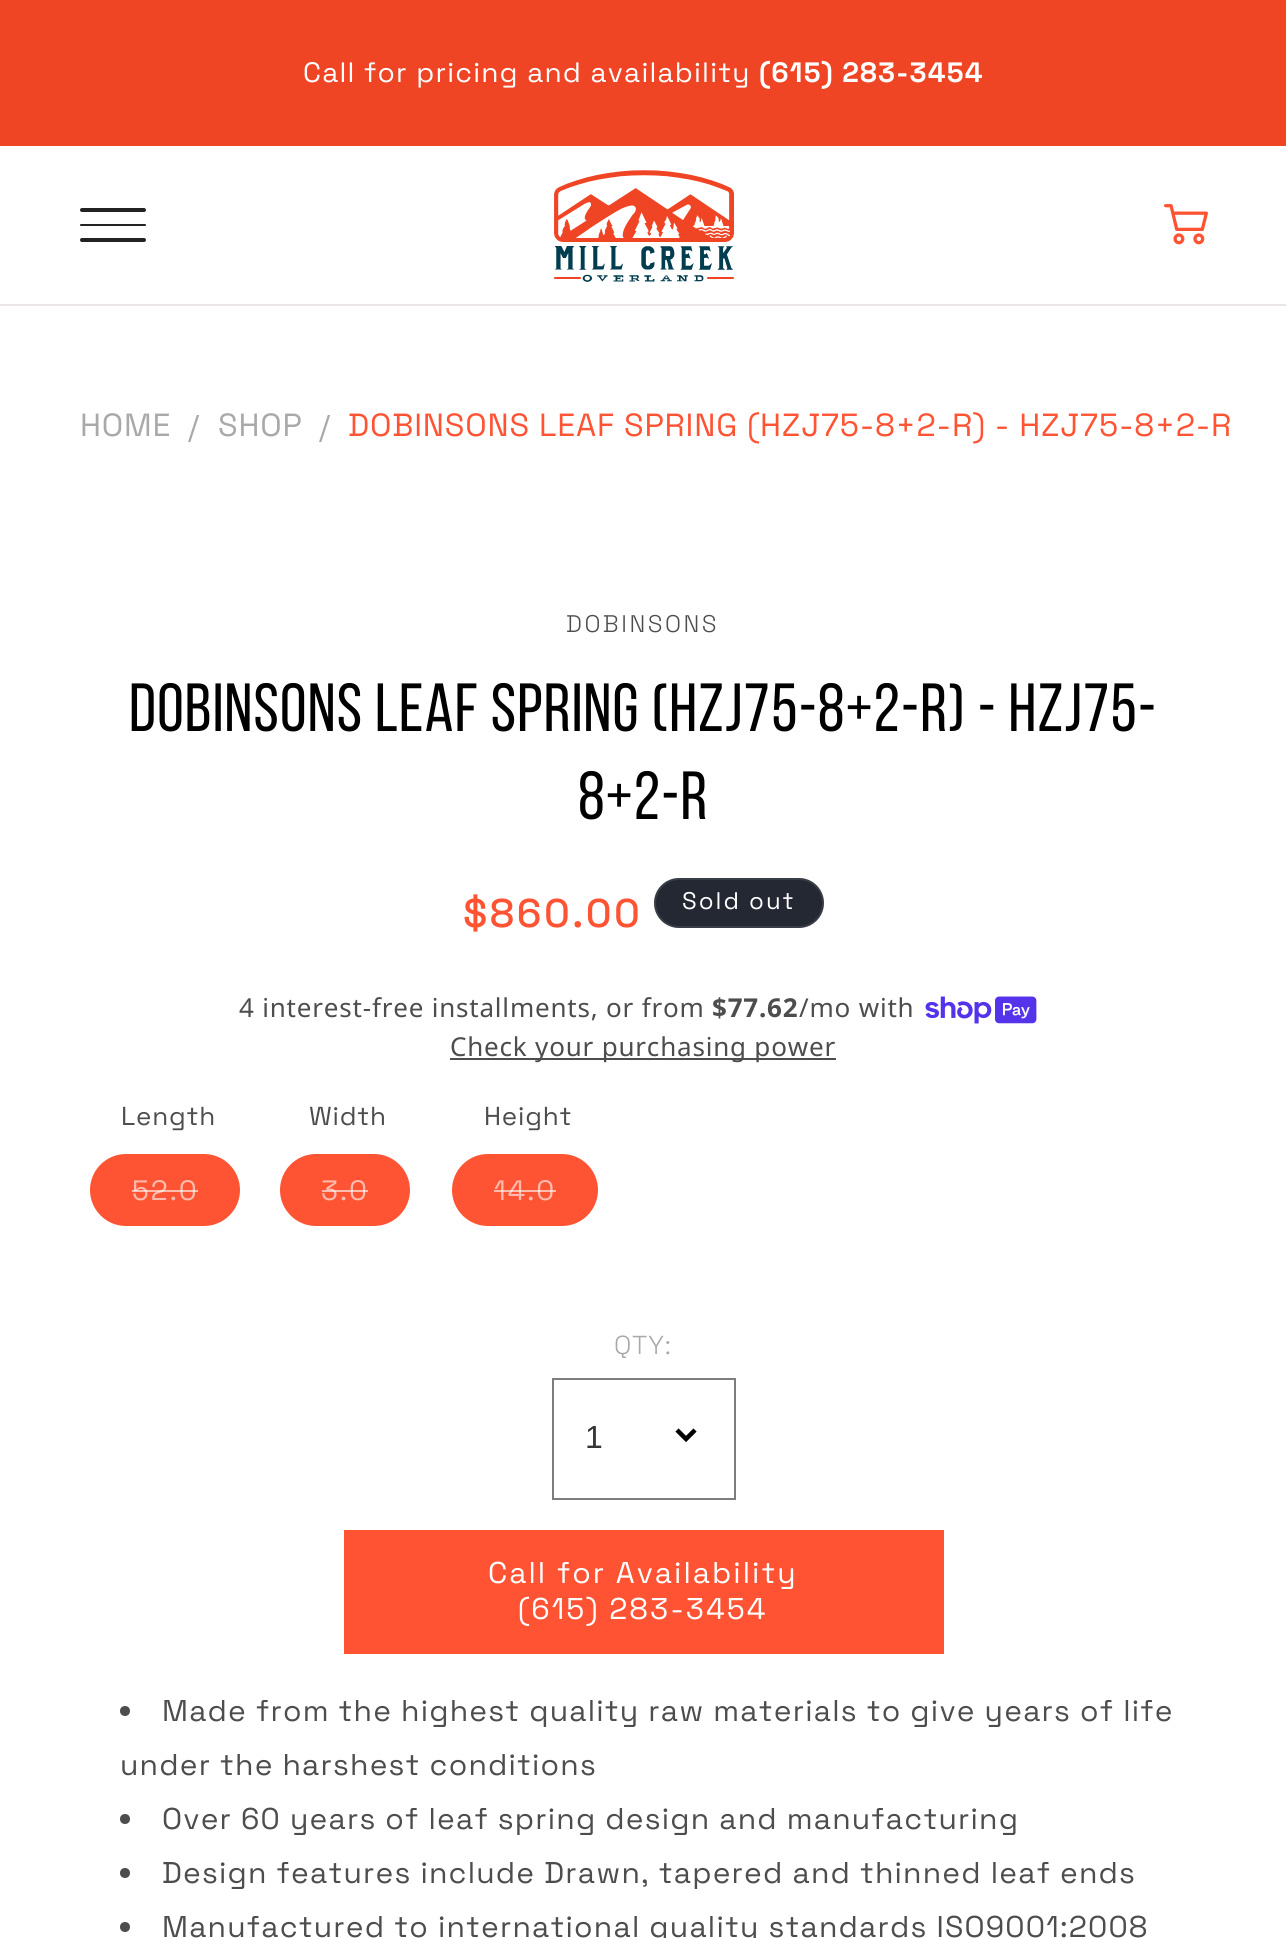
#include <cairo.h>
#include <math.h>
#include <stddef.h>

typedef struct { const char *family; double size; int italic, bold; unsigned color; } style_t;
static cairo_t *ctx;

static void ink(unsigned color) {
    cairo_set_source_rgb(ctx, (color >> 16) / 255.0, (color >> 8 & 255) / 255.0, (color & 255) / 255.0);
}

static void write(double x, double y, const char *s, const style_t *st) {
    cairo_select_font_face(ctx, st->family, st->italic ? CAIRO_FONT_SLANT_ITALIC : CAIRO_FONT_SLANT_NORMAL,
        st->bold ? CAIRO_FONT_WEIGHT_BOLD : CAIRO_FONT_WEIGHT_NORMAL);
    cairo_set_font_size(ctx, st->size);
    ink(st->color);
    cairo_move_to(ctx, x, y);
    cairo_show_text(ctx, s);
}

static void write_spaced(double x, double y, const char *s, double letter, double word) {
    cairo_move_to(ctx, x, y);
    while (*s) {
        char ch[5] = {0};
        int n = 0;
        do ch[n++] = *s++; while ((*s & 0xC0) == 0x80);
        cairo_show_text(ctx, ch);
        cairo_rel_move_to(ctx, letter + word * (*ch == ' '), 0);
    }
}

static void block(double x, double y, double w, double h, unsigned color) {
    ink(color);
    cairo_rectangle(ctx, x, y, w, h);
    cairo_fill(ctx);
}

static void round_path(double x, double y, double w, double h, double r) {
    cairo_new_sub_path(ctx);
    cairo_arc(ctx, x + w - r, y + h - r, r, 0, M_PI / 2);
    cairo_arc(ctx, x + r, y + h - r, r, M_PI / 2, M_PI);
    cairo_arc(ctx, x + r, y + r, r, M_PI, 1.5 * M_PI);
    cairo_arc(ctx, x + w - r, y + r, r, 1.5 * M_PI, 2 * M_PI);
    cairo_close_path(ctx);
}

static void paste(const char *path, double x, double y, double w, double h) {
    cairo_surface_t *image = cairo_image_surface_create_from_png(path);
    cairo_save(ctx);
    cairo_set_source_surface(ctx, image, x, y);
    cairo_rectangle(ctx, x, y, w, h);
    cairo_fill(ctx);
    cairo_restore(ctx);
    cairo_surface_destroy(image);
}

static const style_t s1 = {"Liberation Sans", 32, 0, 0, 0x363636};

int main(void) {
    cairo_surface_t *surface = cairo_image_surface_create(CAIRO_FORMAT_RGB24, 1286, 1938);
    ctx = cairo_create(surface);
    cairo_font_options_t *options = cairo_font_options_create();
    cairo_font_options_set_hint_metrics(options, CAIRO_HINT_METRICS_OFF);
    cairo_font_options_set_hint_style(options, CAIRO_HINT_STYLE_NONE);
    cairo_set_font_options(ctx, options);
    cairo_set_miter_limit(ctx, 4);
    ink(0xffffff);
    cairo_paint(ctx);
    block(0, 0, 1286, 146, 0xef4525);
    cairo_select_font_face(ctx, "Space Grotesk", CAIRO_FONT_SLANT_NORMAL, CAIRO_FONT_WEIGHT_NORMAL);
    cairo_set_font_size(ctx, 28);
    ink(0xffffff);
    write_spaced(303, 82, "Call for pricing and availability", 1.2, 0);
    cairo_select_font_face(ctx, "Space Grotesk", CAIRO_FONT_SLANT_NORMAL, CAIRO_FONT_WEIGHT_BOLD);
    write_spaced(759, 82, "(615) 283-3454", 1.2, 0);
    block(0, 304, 1286, 2, 0xebe6e6);
    ink(0x222222);
    round_path(80, 208, 66, 4, 2);
    cairo_fill(ctx);
    round_path(80, 224, 66, 2, 1);
    cairo_fill(ctx);
    round_path(80, 238, 66, 4, 2);
    cairo_fill(ctx);
    paste("pic1.png", 554, 170, 180, 112);
    paste("pic2.png", 1164, 204, 44, 41);
    cairo_select_font_face(ctx, "Space Grotesk", CAIRO_FONT_SLANT_NORMAL, CAIRO_FONT_WEIGHT_NORMAL);
    cairo_set_font_size(ctx, 32);
    ink(0xa9a9a9);
    write_spaced(80, 436, "HOME", 0.8, 0);
    cairo_set_font_size(ctx, 30);
    write_spaced(188, 436, "/", 1.2, 0);
    cairo_set_font_size(ctx, 32);
    write_spaced(218, 436, "SHOP", 0.8, 0);
    cairo_set_font_size(ctx, 30);
    write_spaced(319, 436, "/", 1.2, 0);
    cairo_set_font_size(ctx, 32);
    ink(0xff5333);
    write_spaced(348, 436, "DOBINSONS LEAF SPRING (HZJ75-8+2-R) - HZJ75-8+2-R", 0.8, 0);
    cairo_select_font_face(ctx, "Space Grotesk Light", CAIRO_FONT_SLANT_NORMAL, CAIRO_FONT_WEIGHT_NORMAL);
    cairo_set_font_size(ctx, 24);
    ink(0x4d4d4d);
    write_spaced(566, 632, "DOBINSONS", 2.5, 0);
    cairo_select_font_face(ctx, "Bebas Neue", CAIRO_FONT_SLANT_NORMAL, CAIRO_FONT_WEIGHT_NORMAL);
    cairo_set_font_size(ctx, 68);
    ink(0x000000);
    write_spaced(129, 731, "Dobinsons Leaf Spring (HZJ75-8+2-R) - HZJ75-", 1.2, 0);
    write_spaced(578, 819, "8+2-R", 1.2, 0);
    cairo_select_font_face(ctx, "Space Grotesk Medium", CAIRO_FONT_SLANT_NORMAL, CAIRO_FONT_WEIGHT_NORMAL);
    cairo_set_font_size(ctx, 40);
    ink(0xff5333);
    write_spaced(463, 927, "$860.00", 2.5, 0);
    ink(0x242833);
    round_path(654, 878, 170, 50, 25);
    cairo_fill(ctx);
    round_path(655, 879, 168, 48, 24);
    cairo_set_source_rgba(ctx, 1, 1, 1, 0.1);
    cairo_stroke(ctx);
    cairo_select_font_face(ctx, "Space Grotesk", CAIRO_FONT_SLANT_NORMAL, CAIRO_FONT_WEIGHT_NORMAL);
    cairo_set_font_size(ctx, 24);
    ink(0xffffff);
    write_spaced(682, 909, "Sold out", 2, 0);
    cairo_select_font_face(ctx, "Noto Sans", CAIRO_FONT_SLANT_NORMAL, CAIRO_FONT_WEIGHT_NORMAL);
    cairo_set_font_size(ctx, 26);
    ink(0x4d4d4d);
    write_spaced(239, 1017, "4 interest-free installments, or from", 0.8, 0);
    cairo_select_font_face(ctx, "Noto Sans", CAIRO_FONT_SLANT_NORMAL, CAIRO_FONT_WEIGHT_BOLD);
    write_spaced(712, 1017, "$77.62", 0.8, 0);
    cairo_select_font_face(ctx, "Noto Sans", CAIRO_FONT_SLANT_NORMAL, CAIRO_FONT_WEIGHT_NORMAL);
    write_spaced(799, 1017, "/mo with", 0.8, 0);
    paste("pic3.png", 925, 996, 112, 28);
    block(450, 1058, 386, 2, 0x4d4d4d);
    write_spaced(450, 1056, "Check your purchasing power", 0.8, 0);
    cairo_select_font_face(ctx, "Space Grotesk", CAIRO_FONT_SLANT_NORMAL, CAIRO_FONT_WEIGHT_NORMAL);
    write_spaced(121, 1125, "Length", 0.8, 0);
    ink(0xff5433);
    round_path(91, 1155, 148, 70, 35);
    cairo_fill_preserve(ctx);
    cairo_stroke(ctx);
    cairo_set_font_size(ctx, 28);
    ink(0xffbbad);
    write_spaced(132, 1200, "52.0", 2, 0);
    cairo_set_source_rgba(ctx, 1, 1, 1, 0.6);
    cairo_rectangle(ctx, 132, 1190, 66, 2);
    cairo_fill(ctx);
    cairo_set_font_size(ctx, 26);
    ink(0x4d4d4d);
    write_spaced(309, 1125, "Width", 0.8, 0);
    ink(0xff5433);
    round_path(281, 1155, 128, 70, 35);
    cairo_fill_preserve(ctx);
    cairo_stroke(ctx);
    cairo_set_font_size(ctx, 28);
    ink(0xffbbad);
    write_spaced(321, 1200, "3.0", 2, 0);
    cairo_set_source_rgba(ctx, 1, 1, 1, 0.6);
    cairo_rectangle(ctx, 322, 1190, 46, 2);
    cairo_fill(ctx);
    cairo_set_font_size(ctx, 26);
    ink(0x4d4d4d);
    write_spaced(484, 1125, "Height", 0.8, 0);
    ink(0xff5433);
    round_path(453, 1155, 144, 70, 35);
    cairo_fill_preserve(ctx);
    cairo_stroke(ctx);
    cairo_set_font_size(ctx, 28);
    ink(0xffbbad);
    write_spaced(494, 1200, "14.0", 2, 0);
    cairo_set_source_rgba(ctx, 1, 1, 1, 0.6);
    cairo_rectangle(ctx, 494, 1190, 62, 2);
    cairo_fill(ctx);
    cairo_select_font_face(ctx, "Space Grotesk Light", CAIRO_FONT_SLANT_NORMAL, CAIRO_FONT_WEIGHT_NORMAL);
    cairo_set_font_size(ctx, 26);
    ink(0xa9a9a9);
    write_spaced(614, 1354, "QTY:", 0.8, 0);
    cairo_new_path(ctx);
    cairo_move_to(ctx, 677, 1430);
    cairo_line_to(ctx, 686, 1439);
    cairo_line_to(ctx, 695, 1430);
    ink(0x000000);
    cairo_set_line_width(ctx, 4.5);
    cairo_stroke(ctx);
    cairo_rectangle(ctx, 553, 1379, 182, 120);
    ink(0x7d7d7d);
    cairo_set_line_width(ctx, 2);
    cairo_stroke(ctx);
    write(585, 1448, "1", &s1);
    block(344, 1530, 600, 124, 0xff5333);
    cairo_select_font_face(ctx, "Space Grotesk", CAIRO_FONT_SLANT_NORMAL, CAIRO_FONT_WEIGHT_NORMAL);
    cairo_set_font_size(ctx, 30);
    ink(0xffffff);
    write_spaced(488, 1583, "Call for Availability", 2, 0);
    write_spaced(518, 1619, "(615) 283-3454", 2, 0);
    ink(0x4d4d4d);
    cairo_new_path(ctx);
    cairo_arc(ctx, 125, 1711, 5, 0, 2 * M_PI);
    cairo_fill(ctx);
    write_spaced(162, 1721, "Made from the highest quality raw materials to give years of life", 1.2, 0);
    write_spaced(120, 1775, "under the harshest conditions", 1.2, 0);
    cairo_new_path(ctx);
    cairo_arc(ctx, 125, 1819, 5, 0, 2 * M_PI);
    cairo_fill(ctx);
    write_spaced(162, 1829, "Over 60 years of leaf spring design and manufacturing", 1.2, 0);
    cairo_new_path(ctx);
    cairo_arc(ctx, 125, 1873, 5, 0, 2 * M_PI);
    cairo_fill(ctx);
    write_spaced(162, 1883, "Design features include Drawn, tapered and thinned leaf ends", 1.2, 0);
    cairo_new_path(ctx);
    cairo_arc(ctx, 125, 1927, 5, 0, 2 * M_PI);
    cairo_fill(ctx);
    write_spaced(162, 1937, "Manufactured to international quality standards ISO9001:2008", 1.2, 0);
    cairo_surface_write_to_png(surface, "screenshot.png");
    cairo_font_options_destroy(options);
    cairo_destroy(ctx);
    cairo_surface_destroy(surface);
    return 0;
}
